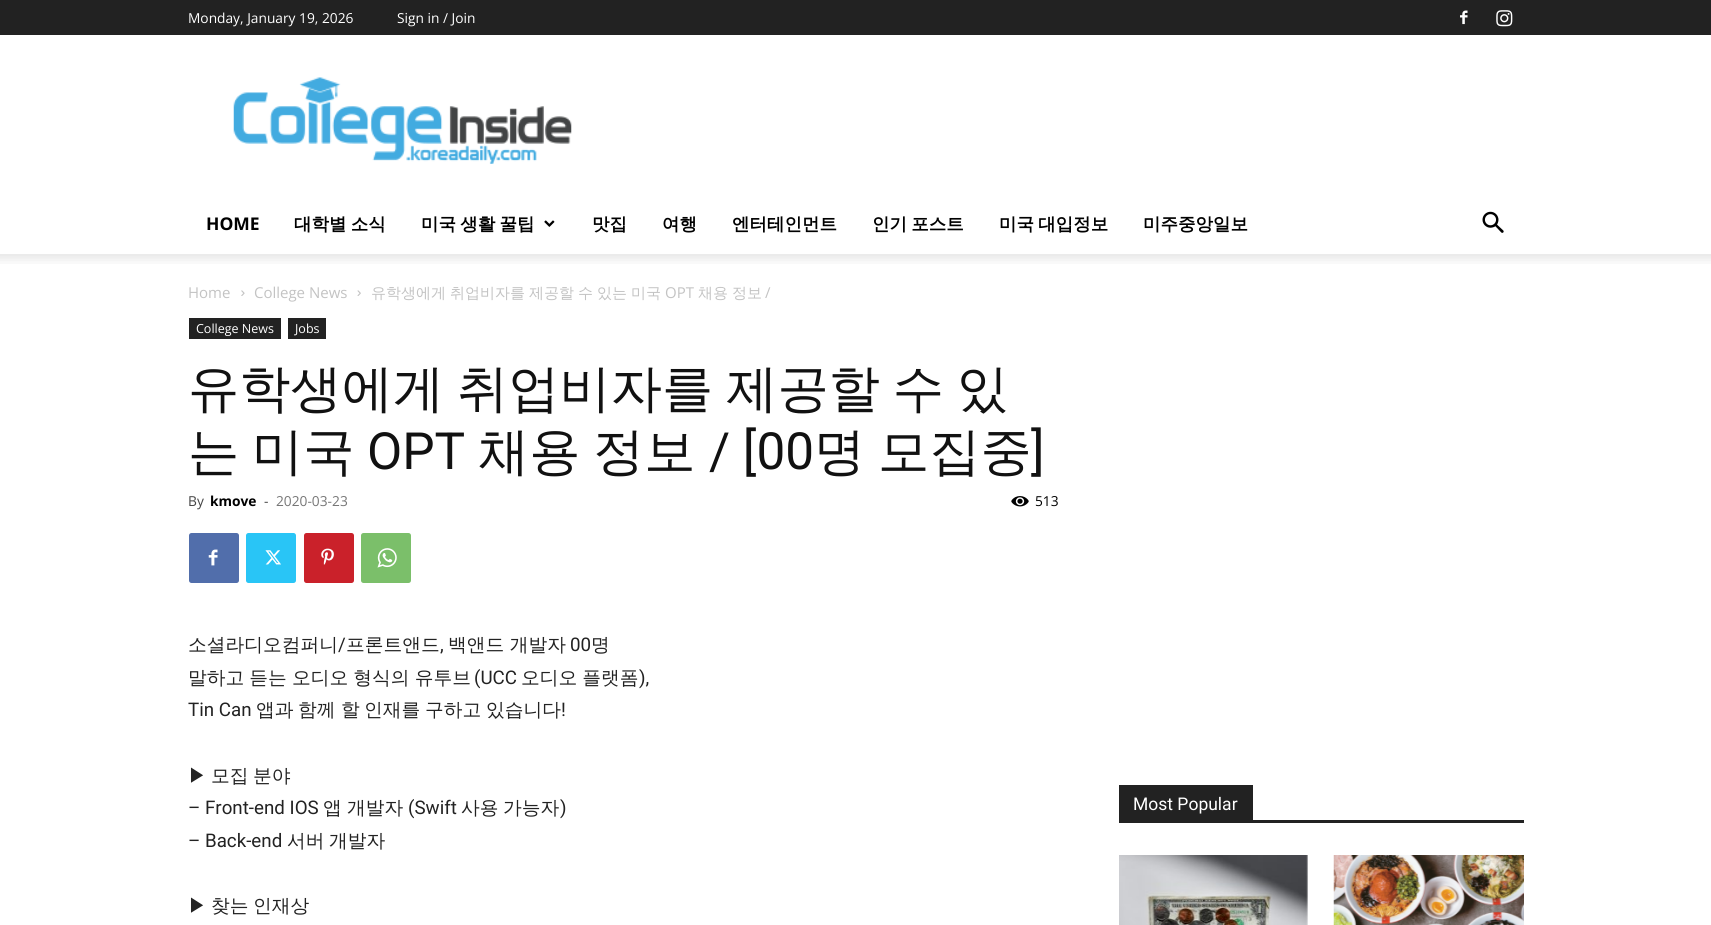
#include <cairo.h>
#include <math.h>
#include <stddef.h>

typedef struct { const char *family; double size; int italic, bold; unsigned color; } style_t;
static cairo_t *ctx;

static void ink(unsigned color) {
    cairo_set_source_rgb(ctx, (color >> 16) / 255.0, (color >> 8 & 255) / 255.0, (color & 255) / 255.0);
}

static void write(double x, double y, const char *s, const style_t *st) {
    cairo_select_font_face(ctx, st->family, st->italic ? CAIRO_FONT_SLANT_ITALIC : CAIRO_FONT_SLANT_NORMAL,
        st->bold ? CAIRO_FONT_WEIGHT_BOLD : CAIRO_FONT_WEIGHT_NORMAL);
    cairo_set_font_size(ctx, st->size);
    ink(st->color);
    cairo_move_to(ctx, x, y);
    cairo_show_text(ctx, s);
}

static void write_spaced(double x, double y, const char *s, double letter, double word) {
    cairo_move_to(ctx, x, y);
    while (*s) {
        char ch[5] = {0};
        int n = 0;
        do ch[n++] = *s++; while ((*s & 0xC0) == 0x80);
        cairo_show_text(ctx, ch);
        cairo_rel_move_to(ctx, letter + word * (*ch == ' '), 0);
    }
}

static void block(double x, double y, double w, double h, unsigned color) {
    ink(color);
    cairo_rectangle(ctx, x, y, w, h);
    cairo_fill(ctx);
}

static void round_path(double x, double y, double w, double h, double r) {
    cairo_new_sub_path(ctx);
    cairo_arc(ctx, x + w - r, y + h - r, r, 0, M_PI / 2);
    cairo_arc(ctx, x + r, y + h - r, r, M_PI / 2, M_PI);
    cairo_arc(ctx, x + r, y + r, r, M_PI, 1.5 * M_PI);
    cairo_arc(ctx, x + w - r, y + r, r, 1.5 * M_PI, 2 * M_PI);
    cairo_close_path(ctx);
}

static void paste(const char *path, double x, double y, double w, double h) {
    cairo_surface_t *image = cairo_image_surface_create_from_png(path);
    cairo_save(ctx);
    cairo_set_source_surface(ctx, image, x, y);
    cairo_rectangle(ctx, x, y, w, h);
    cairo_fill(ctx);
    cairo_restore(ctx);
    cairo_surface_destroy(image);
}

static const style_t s1 = {"Open Sans", 13.75, 0, 0, 0xffffff};
static const style_t s2 = {"Open Sans", 17.5, 0, 1, 0x000000};
static const style_t s3 = {"WenQuanYi Zen Hei", 17.5, 0, 1, 0x000000};
static const style_t s4 = {"Open Sans", 15, 0, 0, 0xc3c3c3};
static const style_t s5 = {"Open Sans", 12.5, 0, 0, 0xffffff};
static const style_t s6 = {"WenQuanYi Zen Hei Medium", 51.25, 0, 0, 0x111111};
static const style_t s7 = {"Roboto", 51.25, 0, 0, 0x111111};
static const style_t s8 = {"Open Sans", 13.75, 0, 0, 0x444444};
static const style_t s9 = {"Open Sans", 13.75, 0, 1, 0x000000};
static const style_t s10 = {"Open Sans", 13.75, 0, 0, 0x767676};
static const style_t s11 = {"Open Sans", 13.75, 0, 0, 0x000000};
static const style_t s12 = {"WenQuanYi Zen Hei Medium", 18.75, 0, 0, 0x222222};
static const style_t s13 = {"Roboto", 18.75, 0, 0, 0x222222};
static const style_t s14 = {"Roboto", 17.5, 0, 0, 0xffffff};

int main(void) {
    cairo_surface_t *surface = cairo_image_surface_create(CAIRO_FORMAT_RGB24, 1711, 925);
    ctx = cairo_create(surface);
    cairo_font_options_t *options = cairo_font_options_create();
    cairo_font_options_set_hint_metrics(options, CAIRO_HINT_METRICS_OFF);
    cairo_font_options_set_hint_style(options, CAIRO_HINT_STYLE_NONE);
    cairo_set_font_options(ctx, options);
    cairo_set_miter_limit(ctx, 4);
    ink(0xffffff);
    cairo_paint(ctx);
    block(0, 0, 1711, 35, 0x222222);
    write(188, 23, "Monday, January 19, 2026", &s1);
    write(397, 23, "Sign in / Join", &s1);
    paste("pic1.png", 1460, 10, 8, 15);
    paste("pic2.png", 1496, 10, 17, 17);
    paste("pic3.png", 233, 77, 339, 87);
    write(206, 230, "HOME", &s2);
    cairo_select_font_face(ctx, "WenQuanYi Zen Hei", CAIRO_FONT_SLANT_NORMAL, CAIRO_FONT_WEIGHT_BOLD);
    write_spaced(294, 230, "대학별 소식", 0, -1);
    write_spaced(421, 230, "미국 생활 꿀팁", 0, -1);
    paste("pic4.png", 544, 220, 11, 7);
    write(592, 230, "맛집", &s3);
    write(662, 230, "여행", &s3);
    write(732, 230, "엔터테인먼트", &s3);
    write_spaced(872, 230, "인기 포스트", 0, -1);
    write_spaced(999, 230, "미국 대입정보", 0, -1);
    write(1143, 230, "미주중앙일보", &s3);
    paste("pic5.png", 1482, 211, 22, 22);
    paste("pic6.png", 0, 254, 1711, 10);
    write(188, 298, "Home", &s4);
    paste("pic7.png", 241, 290, 4, 6);
    write(254, 298, "College News", &s4);
    paste("pic8.png", 357, 290, 4, 6);
    cairo_select_font_face(ctx, "WenQuanYi Zen Hei Medium", CAIRO_FONT_SLANT_NORMAL, CAIRO_FONT_WEIGHT_NORMAL);
    write_spaced(371, 298, "유학생에게 취업비자를 제공할 수 있는 미국", 0, -0.5);
    write(665, 298, "OPT", &s4);
    cairo_select_font_face(ctx, "WenQuanYi Zen Hei Medium", CAIRO_FONT_SLANT_NORMAL, CAIRO_FONT_WEIGHT_NORMAL);
    write_spaced(698, 298, "채용 정보", 0, -0.5);
    write(765, 298, "/", &s4);
    block(189, 318, 92, 21, 0x222222);
    write(196, 333, "College News", &s5);
    block(288, 318, 38, 21, 0x222222);
    write(295, 333, "Jobs", &s5);
    cairo_select_font_face(ctx, "WenQuanYi Zen Hei Medium", CAIRO_FONT_SLANT_NORMAL, CAIRO_FONT_WEIGHT_NORMAL);
    cairo_set_font_size(ctx, 51.25);
    ink(0x111111);
    write_spaced(188, 406, "유학생에게 취업비자를 제공할 수 있", 0, -2.5);
    write(188, 469, "는", &s6);
    write(252, 469, "미국", &s6);
    write(367, 469, "OPT", &s7);
    write(478, 469, "채용", &s6);
    write(593, 469, "정보", &s6);
    write(709, 469, "/ [00", &s7);
    write(814, 469, "명", &s6);
    write(878, 469, "모집중", &s6);
    write(1031, 469, "]", &s7);
    write(188, 506, "By", &s8);
    write(210, 506, "kmove", &s9);
    write(264, 506, "-", &s8);
    write(276, 506, "2020-03-23", &s10);
    paste("pic9.png", 1011, 496, 18, 11);
    write(1035, 506, "513", &s11);
    ink(0x516eab);
    round_path(189, 533, 50, 50, 2.5);
    cairo_fill(ctx);
    paste("pic10.png", 208, 549, 10, 17);
    ink(0x29c5f6);
    round_path(246, 533, 50, 50, 2.5);
    cairo_fill(ctx);
    paste("pic11.png", 265, 550, 16, 15);
    ink(0xca212a);
    round_path(304, 533, 50, 50, 2.5);
    cairo_fill(ctx);
    paste("pic12.png", 321, 548, 13, 17);
    ink(0x7bbf6a);
    round_path(361, 533, 50, 50, 2.5);
    cairo_fill(ctx);
    paste("pic13.png", 377, 548, 20, 20);
    write(188, 651, "소셜라디오컴퍼니", &s12);
    write(338, 651, "/", &s13);
    write(346, 651, "프론트앤드", &s12);
    write(440, 651, ",", &s13);
    write(448, 651, "백앤드 개발자", &s12);
    write(570, 651, "00", &s13);
    write(591, 651, "명", &s12);
    write_spaced(188, 684, "말하고 듣는 오디오 형식의 유투브", 0, -0.5);
    write(474, 684, "(UCC", &s13);
    cairo_select_font_face(ctx, "WenQuanYi Zen Hei Medium", CAIRO_FONT_SLANT_NORMAL, CAIRO_FONT_WEIGHT_NORMAL);
    write_spaced(521, 684, "오디오 플랫폼", 0, -0.5);
    write(639, 684, "),", &s13);
    write(188, 716, "Tin Can", &s13);
    write(256, 716, "앱과", &s12);
    write(298, 716, "함께", &s12);
    write(341, 716, "할", &s12);
    write(364, 716, "인재를", &s12);
    write(425, 716, "구하고", &s12);
    write(486, 716, "있습니다", &s12);
    write(561, 716, "!", &s13);
    write(188, 782, "▶", &s12);
    write_spaced(211, 782, "모집 분야", 0, -1);
    write(188, 814, "– Front-end IOS", &s13);
    write(323, 814, "앱", &s12);
    write(347, 814, "개발자", &s12);
    write(408, 814, "(Swift", &s13);
    write(461, 814, "사용", &s12);
    write(503, 814, "가능자", &s12);
    write(560, 814, ")", &s13);
    write(188, 847, "– Back-end", &s13);
    write(287, 847, "서버", &s12);
    write(329, 847, "개발자", &s12);
    write(188, 912, "▶", &s12);
    write_spaced(211, 912, "찾는 인재상", 0, -1);
    block(1119, 820, 405, 3, 0x222222);
    block(1119, 785, 134, 35, 0x222222);
    write(1133, 810, "Most Popular", &s14);
    paste("pic14.png", 1119, 855, 189, 70);
    paste("pic15.png", 1333, 855, 191, 70);
    cairo_surface_write_to_png(surface, "screenshot.png");
    cairo_font_options_destroy(options);
    cairo_destroy(ctx);
    cairo_surface_destroy(surface);
    return 0;
}
